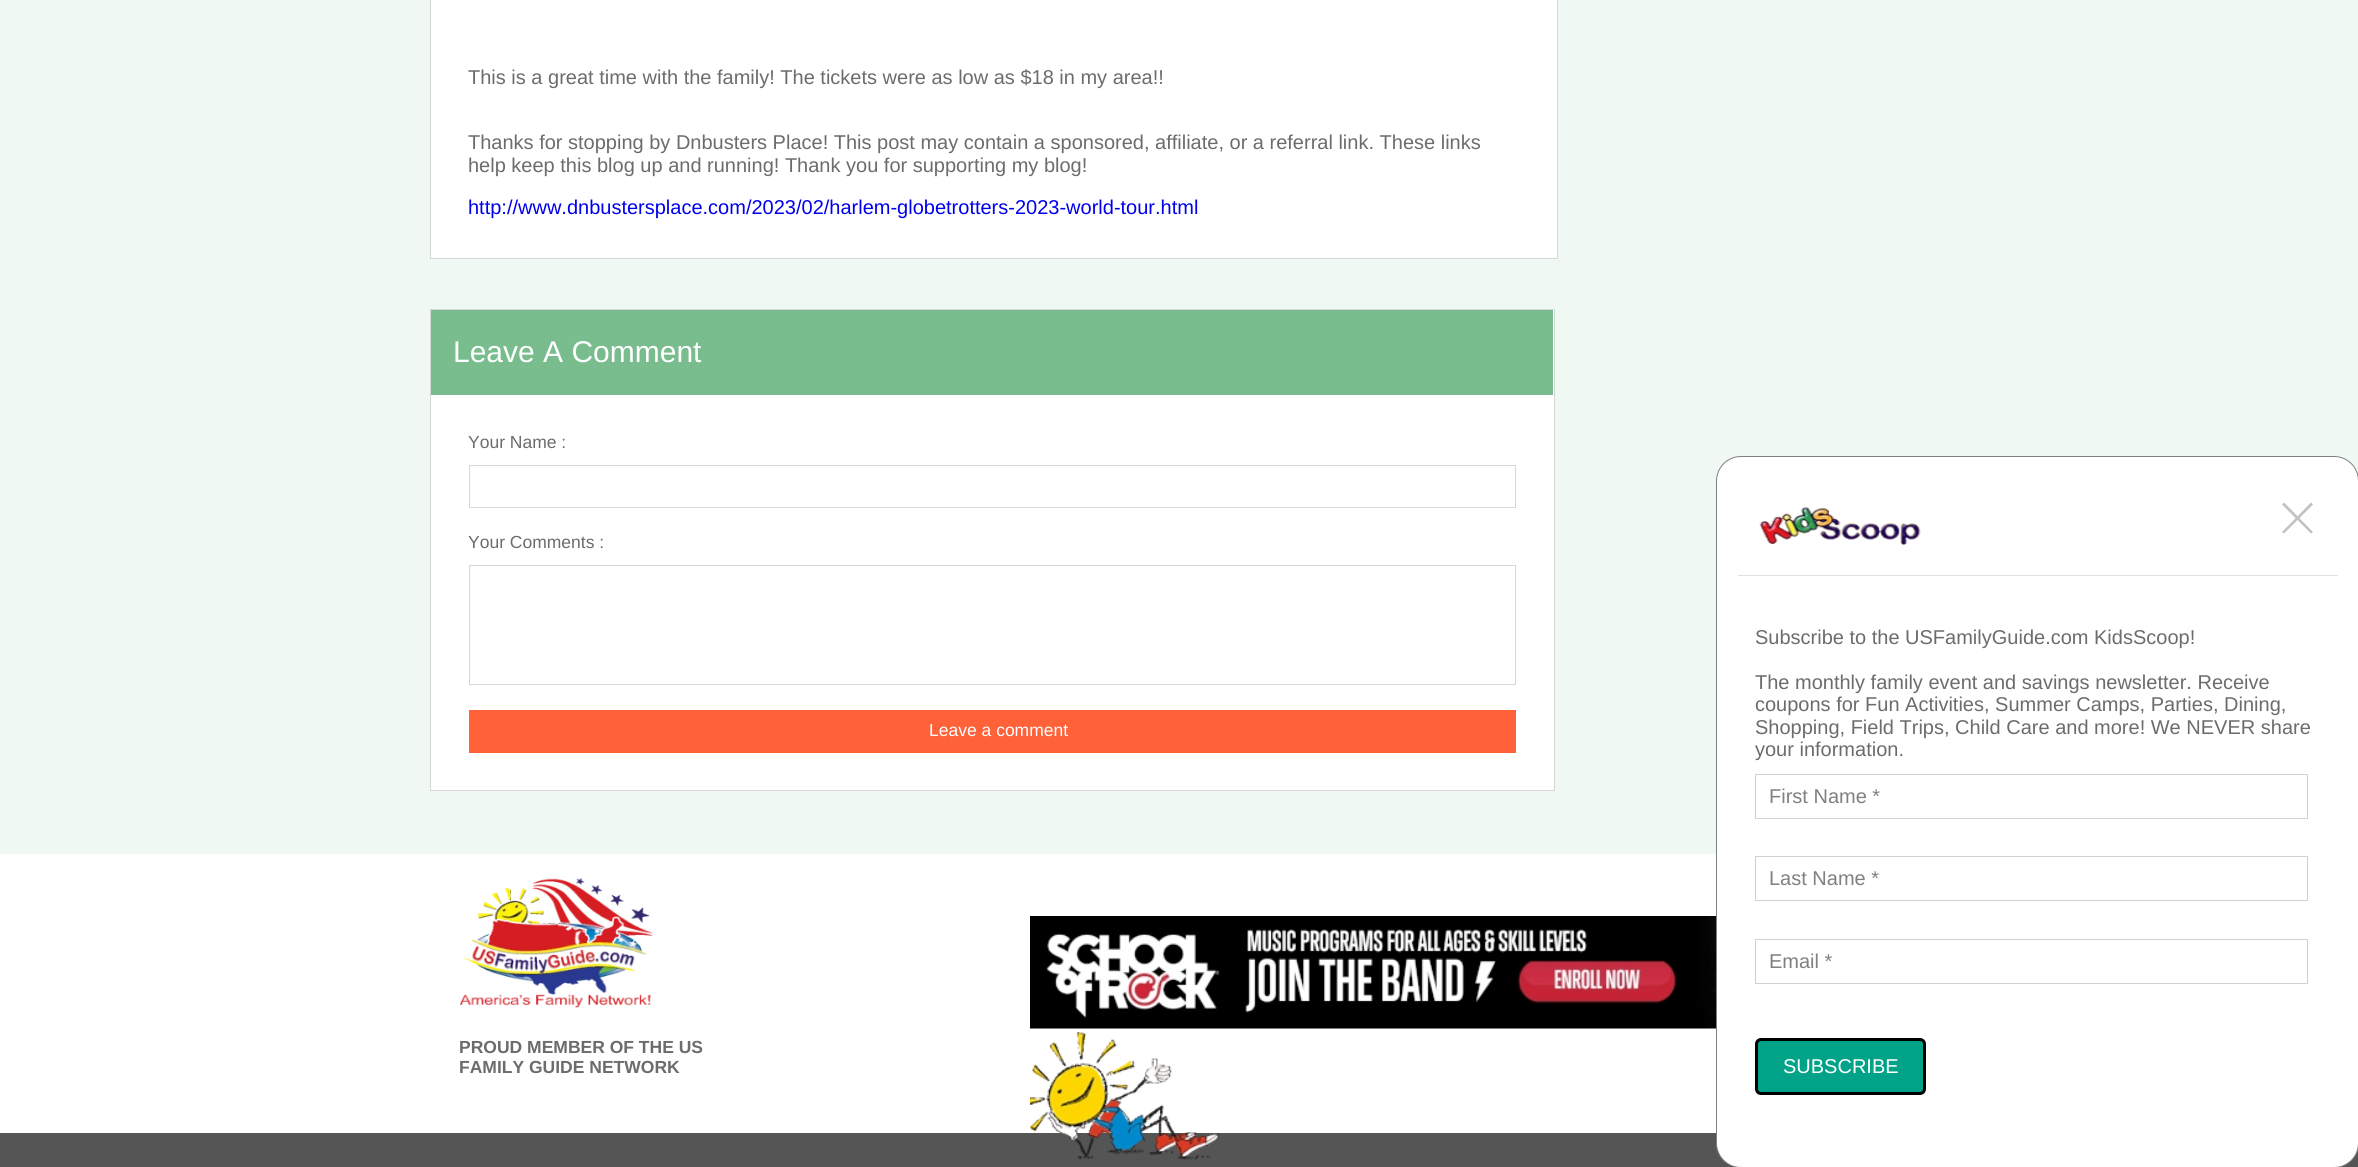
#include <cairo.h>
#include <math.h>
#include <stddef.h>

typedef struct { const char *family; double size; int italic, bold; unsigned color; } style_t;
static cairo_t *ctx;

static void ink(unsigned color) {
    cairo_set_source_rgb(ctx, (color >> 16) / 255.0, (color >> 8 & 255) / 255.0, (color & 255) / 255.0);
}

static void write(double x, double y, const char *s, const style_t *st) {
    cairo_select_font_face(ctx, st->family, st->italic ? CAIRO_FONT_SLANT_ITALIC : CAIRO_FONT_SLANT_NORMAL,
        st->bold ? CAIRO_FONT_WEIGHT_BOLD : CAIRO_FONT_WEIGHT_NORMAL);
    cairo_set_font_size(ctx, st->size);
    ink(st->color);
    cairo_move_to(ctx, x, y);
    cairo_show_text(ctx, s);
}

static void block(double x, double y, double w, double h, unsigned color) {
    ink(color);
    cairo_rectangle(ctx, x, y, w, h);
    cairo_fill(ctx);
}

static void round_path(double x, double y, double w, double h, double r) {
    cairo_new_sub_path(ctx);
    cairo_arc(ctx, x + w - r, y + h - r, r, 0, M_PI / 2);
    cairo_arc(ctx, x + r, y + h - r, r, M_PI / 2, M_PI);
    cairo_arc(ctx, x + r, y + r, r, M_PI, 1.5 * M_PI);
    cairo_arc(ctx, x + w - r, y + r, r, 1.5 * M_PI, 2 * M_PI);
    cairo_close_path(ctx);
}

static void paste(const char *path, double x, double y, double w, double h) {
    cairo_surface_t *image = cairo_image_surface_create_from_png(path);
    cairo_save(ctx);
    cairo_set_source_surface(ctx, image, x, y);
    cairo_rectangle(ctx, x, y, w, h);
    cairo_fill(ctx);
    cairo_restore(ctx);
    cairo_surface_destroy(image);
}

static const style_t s1 = {"Liberation Sans", 20, 0, 0, 0x6c6c6c};
static const style_t s2 = {"Liberation Sans", 20, 0, 0, 0x0000ee};
static const style_t s3 = {"Liberation Sans", 30, 0, 0, 0xffffff};
static const style_t s4 = {"Liberation Sans", 17.5, 0, 0, 0x6c6c6c};
static const style_t s5 = {"Liberation Sans", 17.5, 0, 0, 0xffffff};
static const style_t s6 = {"Liberation Sans", 17.5, 0, 1, 0x6c6c6c};
static const style_t s7 = {"Liberation Sans", 20, 0, 0, 0x808080};
static const style_t s8 = {"Liberation Sans", 20, 0, 0, 0xffffff};

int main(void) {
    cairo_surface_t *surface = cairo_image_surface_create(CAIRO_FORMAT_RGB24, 2358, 1167);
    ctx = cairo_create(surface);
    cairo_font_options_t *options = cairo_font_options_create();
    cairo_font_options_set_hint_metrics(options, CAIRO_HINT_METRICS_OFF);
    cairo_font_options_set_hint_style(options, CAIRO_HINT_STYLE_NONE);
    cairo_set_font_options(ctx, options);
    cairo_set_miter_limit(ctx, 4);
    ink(0xf0f8f3);
    cairo_paint(ctx);
    ink(0xffffff);
    cairo_rectangle(ctx, 430.5, -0.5, 1127, 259);
    cairo_fill_preserve(ctx);
    ink(0xd7d7d7);
    cairo_set_line_width(ctx, 1);
    cairo_stroke(ctx);
    write(468, 84, "This is a great time with the family! The tickets were as low as $18 in my area!!", &s1);
    write(468, 149, "Thanks for stopping by Dnbusters Place! This post may contain a sponsored, affiliate, or a referral link. These links", &s1);
    write(468, 172, "help keep this blog up and running! Thank you for supporting my blog!", &s1);
    write(468, 214, "http://www.dnbustersplace.com/2023/02/harlem-globetrotters-2023-world-tour.html", &s2);
    ink(0xffffff);
    cairo_rectangle(ctx, 430.5, 309.5, 1124, 481);
    cairo_fill_preserve(ctx);
    ink(0xd7d7d7);
    cairo_stroke(ctx);
    block(431, 310, 1122, 85, 0x79bd8f);
    write(453, 362, "Leave A Comment", &s3);
    write(468, 448, "Your Name :", &s4);
    cairo_rectangle(ctx, 469.5, 465.5, 1046, 42);
    ink(0xd7d7d7);
    cairo_stroke(ctx);
    write(468, 548, "Your Comments :", &s4);
    cairo_rectangle(ctx, 469.5, 565.5, 1046, 119);
    ink(0xd7d7d7);
    cairo_stroke(ctx);
    block(469, 710, 1047, 43, 0xff6138);
    write(929, 736, "Leave a comment", &s5);
    block(0, 1133, 2358, 34, 0x555555);
    block(0, 854, 1716, 279, 0xffffff);
    paste("pic1.png", 1030, 1032, 189, 128);
    paste("pic2.png", 1030, 916, 686, 113);
    paste("pic3.png", 460, 878, 193, 130);
    write(459, 1053, "PROUD MEMBER OF THE US", &s6);
    write(459, 1073, "FAMILY GUIDE NETWORK", &s6);
    ink(0xffffff);
    round_path(1716.5, 456.5, 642, 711, 24.5);
    cairo_fill_preserve(ctx);
    ink(0x808080);
    cairo_stroke(ctx);
    paste("pic4.png", 1759, 507, 162, 38);
    ink(0xc2c2c2);
    cairo_new_path(ctx);
    cairo_move_to(ctx, 2311, 502.5);
    cairo_line_to(ctx, 2313, 504.5);
    cairo_line_to(ctx, 2284, 533.5);
    cairo_line_to(ctx, 2282, 532);
    cairo_close_path(ctx);
    cairo_fill(ctx);
    cairo_new_path(ctx);
    cairo_move_to(ctx, 2282, 504.5);
    cairo_line_to(ctx, 2284, 502.5);
    cairo_line_to(ctx, 2313, 532);
    cairo_line_to(ctx, 2311, 533.5);
    cairo_close_path(ctx);
    cairo_fill(ctx);
    block(1738, 575, 600, 1, 0xe1e1e1);
    write(1755, 644, "Subscribe to the USFamilyGuide.com KidsScoop!", &s1);
    write(1755, 689, "The monthly family event and savings newsletter. Receive", &s1);
    write(1755, 711, "coupons for Fun Activities, Summer Camps, Parties, Dining,", &s1);
    write(1755, 734, "Shopping, Field Trips, Child Care and more! We NEVER share", &s1);
    write(1755, 756, "your information.", &s1);
    cairo_rectangle(ctx, 1755.5, 774.5, 552, 44);
    ink(0xd1d1d1);
    cairo_stroke(ctx);
    write(1769, 803, "First Name *", &s7);
    cairo_rectangle(ctx, 1755.5, 856.5, 552, 44);
    ink(0xd1d1d1);
    cairo_stroke(ctx);
    write(1769, 885, "Last Name *", &s7);
    cairo_rectangle(ctx, 1755.5, 939.5, 552, 44);
    ink(0xd1d1d1);
    cairo_stroke(ctx);
    write(1769, 968, "Email *", &s7);
    ink(0x01a388);
    round_path(1756.5, 1039.5, 168, 54, 4.5);
    cairo_fill_preserve(ctx);
    ink(0x000000);
    cairo_set_line_width(ctx, 3);
    cairo_stroke(ctx);
    write(1783, 1073, "SUBSCRIBE", &s8);
    cairo_surface_write_to_png(surface, "screenshot.png");
    cairo_font_options_destroy(options);
    cairo_destroy(ctx);
    cairo_surface_destroy(surface);
    return 0;
}
